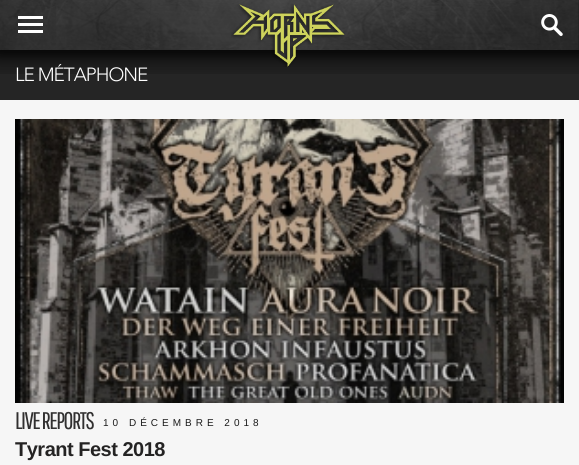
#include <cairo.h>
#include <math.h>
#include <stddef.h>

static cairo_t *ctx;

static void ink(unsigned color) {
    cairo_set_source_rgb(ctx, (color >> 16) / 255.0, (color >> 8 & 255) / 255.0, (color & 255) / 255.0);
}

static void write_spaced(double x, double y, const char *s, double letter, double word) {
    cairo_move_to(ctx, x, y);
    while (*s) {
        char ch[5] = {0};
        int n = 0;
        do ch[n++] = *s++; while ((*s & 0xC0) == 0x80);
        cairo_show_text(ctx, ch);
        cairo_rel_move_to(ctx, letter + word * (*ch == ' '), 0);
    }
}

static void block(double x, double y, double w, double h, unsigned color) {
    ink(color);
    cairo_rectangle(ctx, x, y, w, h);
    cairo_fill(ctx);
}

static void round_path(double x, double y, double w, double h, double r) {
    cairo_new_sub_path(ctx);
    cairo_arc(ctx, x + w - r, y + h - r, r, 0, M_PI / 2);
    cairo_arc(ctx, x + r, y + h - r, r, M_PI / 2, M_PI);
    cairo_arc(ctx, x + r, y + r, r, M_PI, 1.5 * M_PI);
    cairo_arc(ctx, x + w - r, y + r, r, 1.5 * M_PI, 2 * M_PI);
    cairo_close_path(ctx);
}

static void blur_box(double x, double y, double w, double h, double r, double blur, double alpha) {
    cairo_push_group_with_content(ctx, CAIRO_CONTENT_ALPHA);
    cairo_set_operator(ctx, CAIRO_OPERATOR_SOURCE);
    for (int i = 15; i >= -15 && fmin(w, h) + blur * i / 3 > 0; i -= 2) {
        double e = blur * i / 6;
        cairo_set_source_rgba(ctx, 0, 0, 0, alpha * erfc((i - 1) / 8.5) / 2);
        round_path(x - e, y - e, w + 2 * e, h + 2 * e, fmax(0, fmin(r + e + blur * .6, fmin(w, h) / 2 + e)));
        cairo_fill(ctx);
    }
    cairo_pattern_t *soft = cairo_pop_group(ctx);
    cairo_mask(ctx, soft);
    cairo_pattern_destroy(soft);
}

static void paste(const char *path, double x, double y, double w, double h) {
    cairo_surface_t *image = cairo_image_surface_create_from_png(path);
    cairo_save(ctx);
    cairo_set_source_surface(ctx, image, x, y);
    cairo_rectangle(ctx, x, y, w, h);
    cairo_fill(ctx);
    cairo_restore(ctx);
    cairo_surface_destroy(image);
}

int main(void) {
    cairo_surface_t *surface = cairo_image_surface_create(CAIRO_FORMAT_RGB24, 579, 465);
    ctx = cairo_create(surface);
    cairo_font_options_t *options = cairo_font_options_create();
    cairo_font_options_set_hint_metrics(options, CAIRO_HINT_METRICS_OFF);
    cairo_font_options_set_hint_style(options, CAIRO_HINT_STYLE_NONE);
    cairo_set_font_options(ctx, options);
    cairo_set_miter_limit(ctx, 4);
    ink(0xffffff);
    cairo_paint(ctx);
    paste("pic1.png", 578, 0, 1, 50);
    ink(0x000000);
    blur_box(0, 50, 579, 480, 0, 21.5, 0.3);
    block(0, 74, 579, 26, 0x252525);
    paste("pic5.png", 0, 50, 579, 24);
    ink(0x000000);
    blur_box(0, 4, 579, 50, 0, 7, 0.5);
    paste("pic2.png", 0, 0, 579, 50);
    block(18, 16, 25, 3, 0xffffff);
    block(18, 23, 25, 3, 0xffffff);
    block(18, 30, 25, 3, 0xffffff);
    paste("pic3.png", 231, 4, 114, 63);
    paste("pic4.png", 541, 14, 22, 22);
    block(0, 100, 579, 365, 0xf6f6f6);
    cairo_select_font_face(ctx, "Avenir Light", CAIRO_FONT_SLANT_NORMAL, CAIRO_FONT_WEIGHT_NORMAL);
    cairo_set_font_size(ctx, 19);
    ink(0xffffff);
    write_spaced(15, 81, "LE MÉTAPHONE", -1, 0);
    paste("pic6.png", 15, 119, 549, 284);
    cairo_select_font_face(ctx, "Pathway Gothic One", CAIRO_FONT_SLANT_NORMAL, CAIRO_FONT_WEIGHT_NORMAL);
    cairo_set_font_size(ctx, 24);
    ink(0x313030);
    write_spaced(15, 429, "LIVE REPORTS", -1.5, 0);
    cairo_select_font_face(ctx, "Liberation Sans", CAIRO_FONT_SLANT_NORMAL, CAIRO_FONT_WEIGHT_NORMAL);
    cairo_set_font_size(ctx, 10);
    ink(0x1a1a1a);
    write_spaced(103, 426, "10 DÉCEMBRE 2018", 4, 0);
    cairo_select_font_face(ctx, "Liberation Sans", CAIRO_FONT_SLANT_NORMAL, CAIRO_FONT_WEIGHT_BOLD);
    cairo_set_font_size(ctx, 20);
    ink(0x242323);
    write_spaced(15, 456, "Tyrant Fest 2018", -0.5, 0);
    cairo_surface_write_to_png(surface, "screenshot.png");
    cairo_font_options_destroy(options);
    cairo_destroy(ctx);
    cairo_surface_destroy(surface);
    return 0;
}
